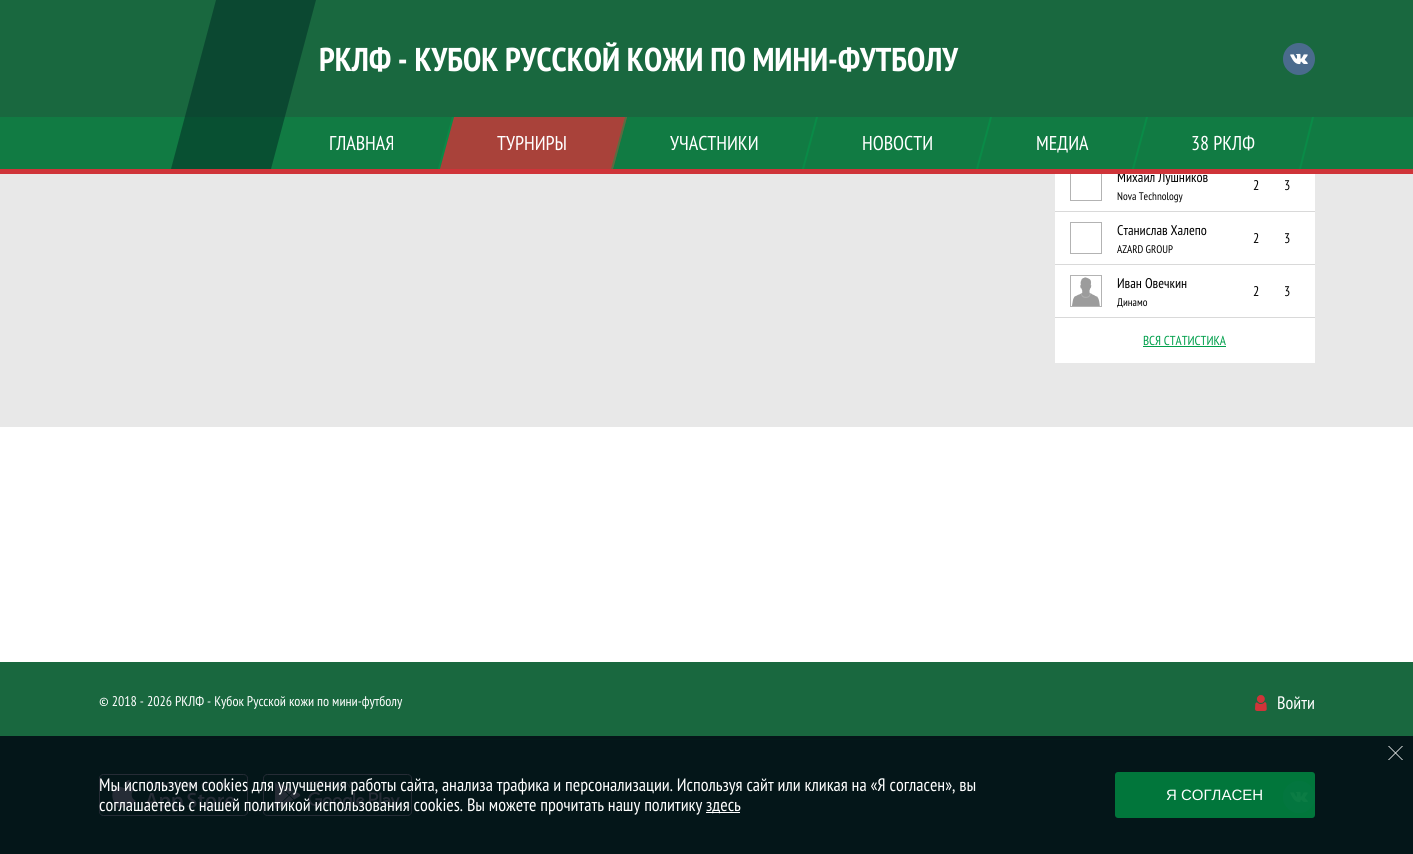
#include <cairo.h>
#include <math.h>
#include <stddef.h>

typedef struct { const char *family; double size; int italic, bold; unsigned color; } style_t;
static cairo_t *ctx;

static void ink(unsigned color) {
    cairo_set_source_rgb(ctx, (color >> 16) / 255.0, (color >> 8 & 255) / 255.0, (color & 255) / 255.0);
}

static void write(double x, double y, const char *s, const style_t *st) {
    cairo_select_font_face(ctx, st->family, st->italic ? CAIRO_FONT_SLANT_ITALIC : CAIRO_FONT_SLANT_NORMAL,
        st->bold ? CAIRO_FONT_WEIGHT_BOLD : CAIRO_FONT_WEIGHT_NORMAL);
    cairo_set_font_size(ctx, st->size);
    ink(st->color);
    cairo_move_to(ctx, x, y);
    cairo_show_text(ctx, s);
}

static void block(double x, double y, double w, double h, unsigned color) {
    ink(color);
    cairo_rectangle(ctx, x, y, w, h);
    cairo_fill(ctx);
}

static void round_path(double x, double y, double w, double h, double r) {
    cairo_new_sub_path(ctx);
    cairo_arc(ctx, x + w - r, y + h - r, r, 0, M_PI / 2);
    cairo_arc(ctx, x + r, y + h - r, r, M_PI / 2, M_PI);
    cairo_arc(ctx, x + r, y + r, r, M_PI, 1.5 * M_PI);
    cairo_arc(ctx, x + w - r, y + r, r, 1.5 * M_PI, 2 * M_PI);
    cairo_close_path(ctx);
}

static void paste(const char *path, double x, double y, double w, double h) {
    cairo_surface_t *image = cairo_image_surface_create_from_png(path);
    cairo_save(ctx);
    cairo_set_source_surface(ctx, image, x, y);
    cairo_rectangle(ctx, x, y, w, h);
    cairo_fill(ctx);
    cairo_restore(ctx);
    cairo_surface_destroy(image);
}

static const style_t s1 = {"PT Sans Narrow", 33, 0, 1, 0xffffff};
static const style_t s2 = {"PT Sans Narrow", 20, 0, 0, 0xffffff};
static const style_t s3 = {"PT Sans Narrow", 14, 0, 0, 0x000000};
static const style_t s4 = {"PT Sans Narrow", 11, 0, 0, 0x000000};
static const style_t s5 = {"PT Sans Narrow", 13, 0, 0, 0x009f4b};
static const style_t s6 = {"PT Sans Narrow", 14, 0, 0, 0xffffff};
static const style_t s7 = {"PT Sans Narrow", 18, 0, 0, 0xffffff};
static const style_t s8 = {"Liberation Sans", 15, 0, 0, 0xffffff};

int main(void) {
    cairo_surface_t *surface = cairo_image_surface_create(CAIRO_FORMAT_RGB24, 1413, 854);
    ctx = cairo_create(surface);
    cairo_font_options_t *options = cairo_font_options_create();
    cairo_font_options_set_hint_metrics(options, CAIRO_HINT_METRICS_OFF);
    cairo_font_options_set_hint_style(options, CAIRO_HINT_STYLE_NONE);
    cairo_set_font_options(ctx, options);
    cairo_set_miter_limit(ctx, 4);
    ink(0xe8e8e8);
    cairo_paint(ctx);
    block(0, 0, 1413, 117, 0x19683f);
    block(0, 117, 1413, 52, 0x117b43);
    cairo_set_source_rgba(ctx, 0.008, 0.2, 0.157, 0.59);
    cairo_new_path(ctx);
    cairo_move_to(ctx, 216, 0);
    cairo_line_to(ctx, 316, 0);
    cairo_line_to(ctx, 271, 169);
    cairo_line_to(ctx, 171, 169);
    cairo_close_path(ctx);
    cairo_fill(ctx);
    write(319, 71, "РКЛФ - КУБОК РУССКОЙ КОЖИ ПО МИНИ-ФУТБОЛУ", &s1);
    ink(0x4a6b8d);
    cairo_new_path(ctx);
    cairo_arc(ctx, 1299, 59, 16, 0, 2 * M_PI);
    cairo_fill(ctx);
    paste("pic1.png", 1290, 53, 18, 12);
    ink(0x098b47);
    cairo_new_path(ctx);
    cairo_move_to(ctx, 452, 117);
    cairo_line_to(ctx, 454, 117);
    cairo_line_to(ctx, 440, 169);
    cairo_line_to(ctx, 438, 169);
    cairo_close_path(ctx);
    cairo_fill(ctx);
    write(329, 150, "ГЛАВНАЯ", &s2);
    cairo_set_source_rgba(ctx, 0.812, 0.204, 0.224, 0.8);
    cairo_new_path(ctx);
    cairo_move_to(ctx, 454, 117);
    cairo_line_to(ctx, 627, 117);
    cairo_line_to(ctx, 613, 169);
    cairo_line_to(ctx, 440, 169);
    cairo_close_path(ctx);
    cairo_fill(ctx);
    cairo_set_source_rgba(ctx, 0, 0.624, 0.294, 0.45);
    cairo_new_path(ctx);
    cairo_move_to(ctx, 625, 117);
    cairo_line_to(ctx, 627, 117);
    cairo_line_to(ctx, 613, 169);
    cairo_line_to(ctx, 611, 169);
    cairo_close_path(ctx);
    cairo_fill(ctx);
    write(497, 150, "ТУРНИРЫ", &s2);
    ink(0x098b47);
    cairo_new_path(ctx);
    cairo_move_to(ctx, 816, 117);
    cairo_line_to(ctx, 818, 117);
    cairo_line_to(ctx, 804, 169);
    cairo_line_to(ctx, 802, 169);
    cairo_close_path(ctx);
    cairo_fill(ctx);
    write(670, 150, "УЧАСТНИКИ", &s2);
    ink(0x098b47);
    cairo_new_path(ctx);
    cairo_move_to(ctx, 990, 117);
    cairo_line_to(ctx, 992, 117);
    cairo_line_to(ctx, 978, 169);
    cairo_line_to(ctx, 976, 169);
    cairo_close_path(ctx);
    cairo_fill(ctx);
    write(862, 150, "НОВОСТИ", &s2);
    ink(0x098b47);
    cairo_new_path(ctx);
    cairo_move_to(ctx, 1146, 117);
    cairo_line_to(ctx, 1148, 117);
    cairo_line_to(ctx, 1134, 169);
    cairo_line_to(ctx, 1132, 169);
    cairo_close_path(ctx);
    cairo_fill(ctx);
    write(1036, 150, "МЕДИА", &s2);
    ink(0x098b47);
    cairo_new_path(ctx);
    cairo_move_to(ctx, 1312, 117);
    cairo_line_to(ctx, 1314, 117);
    cairo_line_to(ctx, 1301, 169);
    cairo_line_to(ctx, 1299, 169);
    cairo_close_path(ctx);
    cairo_fill(ctx);
    write(1191, 150, "38 РКЛФ", &s2);
    block(1055, 174, 260, 189, 0xffffff);
    cairo_rectangle(ctx, 1070.5, 169.5, 31, 31);
    ink(0xb3b3b3);
    cairo_set_line_width(ctx, 1);
    cairo_stroke(ctx);
    write(1117, 182, "Михаил Лушников", &s3);
    block(0, 169, 1413, 5, 0xcf3439);
    block(1055, 211, 62, 1, 0xd9d9d9);
    block(1117, 211, 198, 1, 0xd9d9d9);
    write(1253, 190, "2", &s3);
    write(1284, 190, "3", &s3);
    write(1117, 200, "Nova Technology", &s4);
    block(1055, 264, 62, 1, 0xd9d9d9);
    cairo_rectangle(ctx, 1070.5, 222.5, 31, 31);
    ink(0xb3b3b3);
    cairo_stroke(ctx);
    write(1117, 235, "Станислав Халепо", &s3);
    block(1117, 264, 198, 1, 0xd9d9d9);
    write(1253, 243, "2", &s3);
    write(1284, 243, "3", &s3);
    write(1117, 253, "AZARD GROUP", &s4);
    block(1055, 317, 62, 1, 0xd9d9d9);
    cairo_rectangle(ctx, 1070.5, 275.5, 31, 31);
    ink(0xb3b3b3);
    cairo_stroke(ctx);
    paste("pic2.png", 1072, 277, 28, 29);
    write(1117, 288, "Иван Овечкин", &s3);
    block(1117, 317, 198, 1, 0xd9d9d9);
    write(1253, 296, "2", &s3);
    write(1284, 296, "3", &s3);
    cairo_save(ctx);
    cairo_rectangle(ctx, 1117, 292, 120, 20);
    cairo_clip(ctx);
    write(1117, 306, "Динамо", &s4);
    cairo_restore(ctx);
    write(1143, 345, "ВСЯ СТАТИСТИКА", &s5);
    block(1143, 346, 83, 1, 0x009f4b);
    block(0, 427, 1413, 235, 0xffffff);
    block(0, 662, 1413, 74, 0x19683f);
    block(0, 736, 1413, 118, 0x041619);
    block(99, 739, 1216, 1, 0x021a1a);
    write(99, 706, "© 2018 - 2026 РКЛФ - Кубок Русской кожи по мини-футболу", &s6);
    paste("pic3.png", 1255, 695, 12, 16);
    write(1277, 709, "Войти", &s7);
    paste("pic4.png", 99, 774, 149, 42);
    paste("pic5.png", 263, 774, 149, 42);
    ink(0x0b1625);
    cairo_arc(ctx, 1299, 797, 16, 0, 2 * M_PI);
    cairo_fill(ctx);
    paste("pic6.png", 1290, 791, 18, 12);
    ink(0xffffff);
    cairo_new_path(ctx);
    cairo_move_to(ctx, 1402, 746);
    cairo_line_to(ctx, 1403, 746);
    cairo_line_to(ctx, 1389, 760);
    cairo_line_to(ctx, 1388, 760);
    cairo_close_path(ctx);
    cairo_fill(ctx);
    cairo_new_path(ctx);
    cairo_move_to(ctx, 1388, 746);
    cairo_line_to(ctx, 1389, 746);
    cairo_line_to(ctx, 1403, 760);
    cairo_line_to(ctx, 1402, 760);
    cairo_close_path(ctx);
    cairo_fill(ctx);
    write(99, 791, "Мы используем cookies для улучшения работы сайта, анализа трафика и персонализации. Используя сайт или кликая на «Я согласен», вы", &s7);
    write(99, 811, "соглашаетесь с нашей политикой использования cookies. Вы можете прочитать нашу политику", &s7);
    block(706, 812, 34, 1, 0xffffff);
    write(706, 811, "здесь", &s7);
    cairo_set_source_rgba(ctx, 0, 0.624, 0.294, 0.7);
    round_path(1115, 772, 200, 46, 3);
    cairo_fill(ctx);
    write(1166, 800, "Я СОГЛАСЕН", &s8);
    cairo_surface_write_to_png(surface, "screenshot.png");
    cairo_font_options_destroy(options);
    cairo_destroy(ctx);
    cairo_surface_destroy(surface);
    return 0;
}
